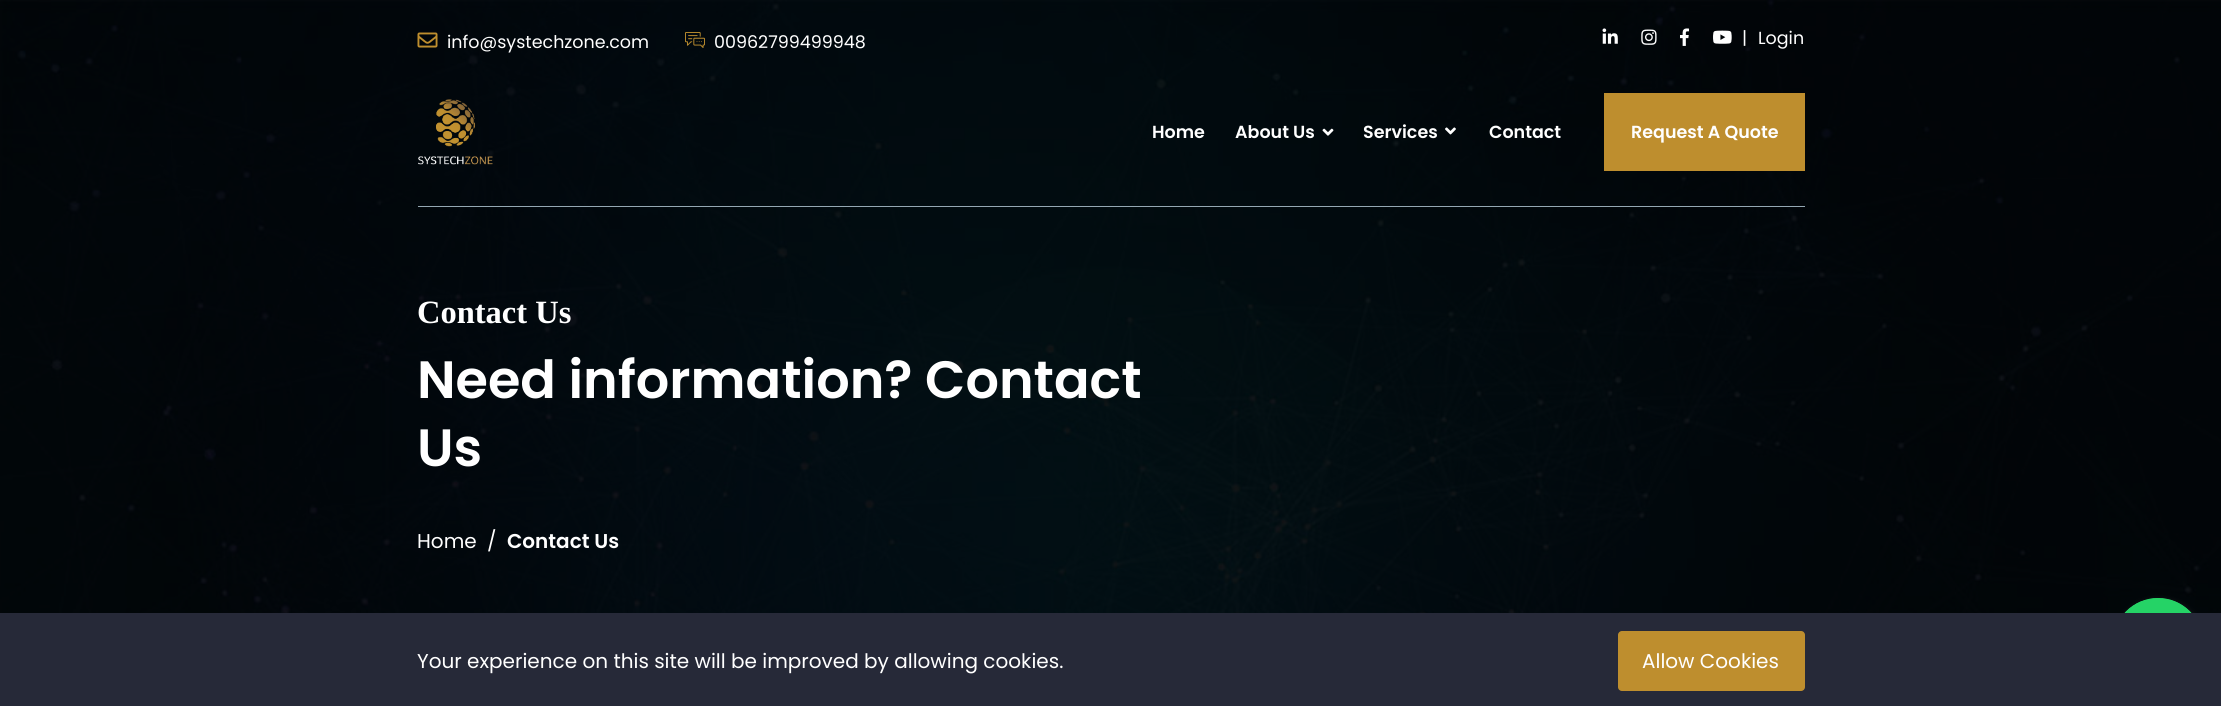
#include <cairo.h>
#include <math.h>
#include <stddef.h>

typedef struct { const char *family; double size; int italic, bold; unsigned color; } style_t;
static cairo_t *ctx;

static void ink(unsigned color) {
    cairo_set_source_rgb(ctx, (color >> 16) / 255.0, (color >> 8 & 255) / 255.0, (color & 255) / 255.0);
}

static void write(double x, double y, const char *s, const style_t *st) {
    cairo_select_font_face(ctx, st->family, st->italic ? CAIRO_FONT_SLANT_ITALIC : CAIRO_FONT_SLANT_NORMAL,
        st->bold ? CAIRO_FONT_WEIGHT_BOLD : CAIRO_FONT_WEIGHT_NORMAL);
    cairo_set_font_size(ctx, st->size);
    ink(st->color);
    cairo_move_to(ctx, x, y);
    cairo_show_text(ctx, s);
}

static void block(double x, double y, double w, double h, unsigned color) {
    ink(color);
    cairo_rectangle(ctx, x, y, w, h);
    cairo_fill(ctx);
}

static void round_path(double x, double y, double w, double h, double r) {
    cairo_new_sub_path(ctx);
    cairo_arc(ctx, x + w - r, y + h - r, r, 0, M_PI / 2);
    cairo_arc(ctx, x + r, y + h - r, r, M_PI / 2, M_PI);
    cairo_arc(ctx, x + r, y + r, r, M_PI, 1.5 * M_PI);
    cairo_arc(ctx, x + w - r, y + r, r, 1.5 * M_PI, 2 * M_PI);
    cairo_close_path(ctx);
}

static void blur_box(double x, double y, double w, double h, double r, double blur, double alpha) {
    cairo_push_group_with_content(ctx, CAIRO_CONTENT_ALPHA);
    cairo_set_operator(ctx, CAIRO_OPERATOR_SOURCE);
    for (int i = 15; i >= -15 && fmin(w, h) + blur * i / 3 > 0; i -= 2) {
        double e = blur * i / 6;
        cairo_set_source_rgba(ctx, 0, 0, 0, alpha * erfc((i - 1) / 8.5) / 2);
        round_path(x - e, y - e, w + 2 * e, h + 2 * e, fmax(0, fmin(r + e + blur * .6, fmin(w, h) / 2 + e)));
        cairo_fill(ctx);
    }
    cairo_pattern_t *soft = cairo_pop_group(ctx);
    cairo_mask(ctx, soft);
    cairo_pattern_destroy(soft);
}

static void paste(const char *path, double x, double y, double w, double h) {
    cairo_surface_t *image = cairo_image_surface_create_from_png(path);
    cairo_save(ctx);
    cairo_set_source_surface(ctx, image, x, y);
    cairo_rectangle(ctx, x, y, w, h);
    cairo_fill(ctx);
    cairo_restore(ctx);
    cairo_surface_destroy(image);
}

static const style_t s1 = {"Poppins", 17.5, 0, 0, 0xffffff};
static const style_t s2 = {"Poppins SemiBold", 17.5, 0, 0, 0xffffff};
static const style_t s3 = {"Liberation Serif", 32.5, 0, 1, 0xffffff};
static const style_t s4 = {"Poppins SemiBold", 52.5, 0, 0, 0xffffff};
static const style_t s5 = {"Poppins", 20, 0, 0, 0xffffff};
static const style_t s6 = {"Poppins SemiBold", 20, 0, 0, 0xffffff};

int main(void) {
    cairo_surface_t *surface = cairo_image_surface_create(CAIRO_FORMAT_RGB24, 2221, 706);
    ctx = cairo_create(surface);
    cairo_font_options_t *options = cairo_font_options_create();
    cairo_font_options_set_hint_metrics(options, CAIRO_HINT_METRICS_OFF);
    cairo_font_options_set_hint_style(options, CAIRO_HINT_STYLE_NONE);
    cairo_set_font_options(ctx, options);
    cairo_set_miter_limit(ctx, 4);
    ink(0xffffff);
    cairo_paint(ctx);
    paste("pic10.png", 0, 0, 2221, 613);
    paste("pic1.png", 417, 32, 21, 16);
    write(447, 48, "info@systechzone.com", &s1);
    paste("pic2.png", 685, 32, 20, 16);
    write(714, 48, "00962799499948", &s1);
    paste("pic3.png", 1602, 28, 16, 16);
    paste("pic4.png", 1641, 29, 16, 16);
    paste("pic5.png", 1680, 28, 10, 18);
    paste("pic6.png", 1713, 30, 19, 14);
    write(1742, 44, "|", &s1);
    write(1758, 44, "Login", &s1);
    block(418, 206, 1387, 1, 0x94a7b2);
    paste("pic7.png", 418, 99, 75, 66);
    write(1152, 138, "Home", &s2);
    write(1235, 138, "About Us", &s2);
    paste("pic8.png", 1322, 128, 12, 8);
    write(1363, 138, "Services", &s2);
    paste("pic9.png", 1445, 127, 11, 8);
    write(1489, 138, "Contact", &s2);
    block(1604, 93, 201, 78, 0xbe8e2e);
    write(1631, 138, "Request A Quote", &s2);
    write(417, 323, "Contact Us", &s3);
    write(417, 398, "Need information? Contact", &s4);
    write(417, 466, "Us", &s4);
    write(417, 548, "Home", &s5);
    write(487, 548, "/", &s5);
    write(507, 548, "Contact Us", &s6);
    ink(0x3c3c3c);
    blur_box(2114, 599, 90, 90, 45, 2.5, 0.4);
    ink(0x25d366);
    cairo_arc(ctx, 2158, 643, 45, 0, 2 * M_PI);
    cairo_fill(ctx);
    block(0, 613, 2221, 93, 0x262938);
    write(417, 668, "Your experience on this site will be improved by allowing cookies.", &s5);
    ink(0xbe8e2e);
    round_path(1618, 631, 187, 60, 4);
    cairo_fill(ctx);
    write(1642, 668, "Allow Cookies", &s5);
    paste("pic11.png", 2125, 598, 66, 15);
    cairo_surface_write_to_png(surface, "screenshot.png");
    cairo_font_options_destroy(options);
    cairo_destroy(ctx);
    cairo_surface_destroy(surface);
    return 0;
}
